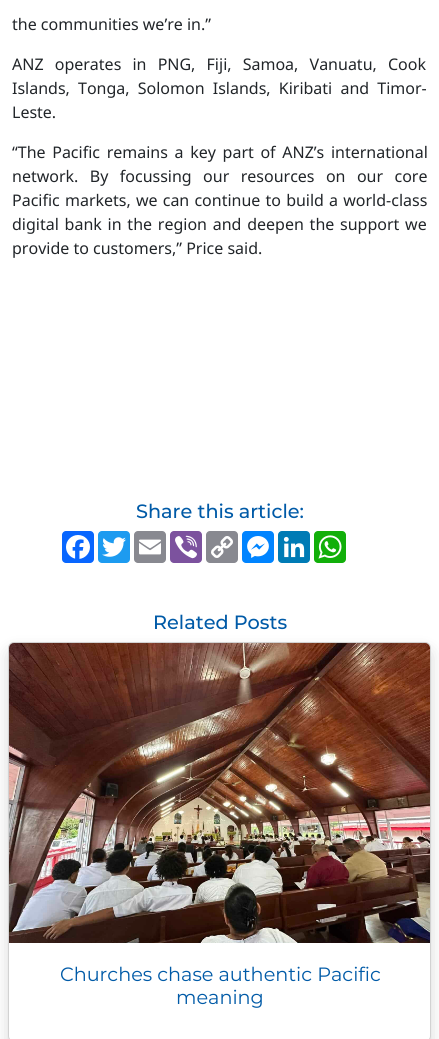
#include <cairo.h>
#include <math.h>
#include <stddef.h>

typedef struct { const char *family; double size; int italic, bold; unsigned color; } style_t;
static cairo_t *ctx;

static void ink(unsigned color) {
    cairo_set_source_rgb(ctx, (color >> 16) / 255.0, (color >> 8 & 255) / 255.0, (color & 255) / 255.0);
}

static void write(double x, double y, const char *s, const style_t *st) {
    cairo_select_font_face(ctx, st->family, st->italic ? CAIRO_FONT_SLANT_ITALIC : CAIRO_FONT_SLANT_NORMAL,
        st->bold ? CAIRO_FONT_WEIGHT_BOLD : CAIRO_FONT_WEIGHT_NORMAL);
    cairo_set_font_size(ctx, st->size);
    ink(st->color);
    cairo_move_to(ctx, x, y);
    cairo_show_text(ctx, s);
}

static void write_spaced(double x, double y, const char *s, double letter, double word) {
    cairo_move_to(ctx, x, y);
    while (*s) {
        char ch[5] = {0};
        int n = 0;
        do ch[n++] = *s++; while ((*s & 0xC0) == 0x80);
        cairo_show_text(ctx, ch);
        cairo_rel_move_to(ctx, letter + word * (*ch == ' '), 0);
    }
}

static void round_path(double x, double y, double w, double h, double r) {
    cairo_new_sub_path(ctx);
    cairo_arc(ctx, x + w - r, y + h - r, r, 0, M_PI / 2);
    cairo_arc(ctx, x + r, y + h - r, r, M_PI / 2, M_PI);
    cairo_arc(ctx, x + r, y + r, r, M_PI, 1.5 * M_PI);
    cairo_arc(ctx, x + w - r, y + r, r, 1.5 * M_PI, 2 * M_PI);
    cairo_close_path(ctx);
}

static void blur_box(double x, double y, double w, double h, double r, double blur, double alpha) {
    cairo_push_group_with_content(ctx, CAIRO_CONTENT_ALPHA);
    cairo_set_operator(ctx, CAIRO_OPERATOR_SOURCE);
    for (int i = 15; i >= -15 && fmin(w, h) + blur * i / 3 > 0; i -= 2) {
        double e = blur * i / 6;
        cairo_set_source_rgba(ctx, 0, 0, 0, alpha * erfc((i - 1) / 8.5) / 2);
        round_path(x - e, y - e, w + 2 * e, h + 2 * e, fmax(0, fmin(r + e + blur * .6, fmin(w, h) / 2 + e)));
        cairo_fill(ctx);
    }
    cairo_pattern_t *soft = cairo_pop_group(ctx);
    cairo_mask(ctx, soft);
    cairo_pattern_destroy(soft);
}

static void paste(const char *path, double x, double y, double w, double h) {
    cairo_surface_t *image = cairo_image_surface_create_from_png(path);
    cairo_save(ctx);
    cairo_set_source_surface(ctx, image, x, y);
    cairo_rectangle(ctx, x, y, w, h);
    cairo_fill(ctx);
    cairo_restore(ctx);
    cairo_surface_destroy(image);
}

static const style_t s1 = {"Noto Sans", 16, 0, 0, 0x212529};
static const style_t s2 = {"Montserrat Medium", 19.25, 0, 0, 0x005aa7};
static const style_t s3 = {"Montserrat", 19.25, 0, 0, 0x005aa7};

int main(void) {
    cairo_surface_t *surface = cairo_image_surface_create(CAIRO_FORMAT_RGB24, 439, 1039);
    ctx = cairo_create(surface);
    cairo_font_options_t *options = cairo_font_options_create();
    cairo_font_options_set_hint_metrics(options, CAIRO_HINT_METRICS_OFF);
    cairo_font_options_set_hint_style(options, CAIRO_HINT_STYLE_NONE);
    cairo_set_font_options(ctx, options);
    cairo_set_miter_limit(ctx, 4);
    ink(0xffffff);
    cairo_paint(ctx);
    write(12, 30, "the communities we’re in.”", &s1);
    write_spaced(12, 70, "ANZ operates in PNG, Fiji, Samoa, Vanuatu, Cook", 0, 7);
    write_spaced(12, 94, "Islands, Tonga, Solomon Islands, Kiribati and Timor-", 0, 4);
    write(12, 118, "Leste.", &s1);
    write_spaced(12, 158, "“The Pacific remains a key part of ANZ’s international", 0, 2.5);
    write_spaced(12, 182, "network. By focussing our resources on our core", 0, 7.25);
    write_spaced(12, 206, "Pacific markets, we can continue to build a world-class", 0, 1);
    write_spaced(12, 230, "digital bank in the region and deepen the support we", 0, 1.6);
    write(12, 254, "provide to customers,” Price said.", &s1);
    write(136, 518, "Share this article:", &s2);
    ink(0x0866ff);
    round_path(62, 531, 32, 32, 4);
    cairo_fill(ctx);
    paste("pic1.png", 66, 535, 24, 24);
    ink(0x1d9bf0);
    round_path(98, 531, 32, 32, 4);
    cairo_fill(ctx);
    paste("pic2.png", 102, 537, 24, 20);
    ink(0x888990);
    round_path(134, 531, 32, 32, 4);
    cairo_fill(ctx);
    paste("pic3.png", 139, 539, 22, 16);
    ink(0x7c529e);
    round_path(170, 531, 32, 32, 4);
    cairo_fill(ctx);
    paste("pic4.png", 175, 535, 22, 24);
    ink(0x888990);
    round_path(206, 531, 32, 32, 4);
    cairo_fill(ctx);
    paste("pic5.png", 211, 536, 22, 22);
    ink(0x0084ff);
    round_path(242, 531, 32, 32, 4);
    cairo_fill(ctx);
    paste("pic6.png", 247, 536, 22, 22);
    ink(0x007bb5);
    round_path(278, 531, 32, 32, 4);
    cairo_fill(ctx);
    paste("pic7.png", 283, 536, 22, 22);
    ink(0x12af0a);
    round_path(314, 531, 32, 32, 4);
    cairo_fill(ctx);
    paste("pic8.png", 318, 535, 24, 24);
    write(153, 629, "Related Posts", &s2);
    ink(0x000000);
    blur_box(8, 650, 423, 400, 6, 8, 0.15);
    ink(0xffffff);
    round_path(8.5, 642.5, 422, 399, 5.5);
    cairo_fill_preserve(ctx);
    ink(0xd2d2d2);
    cairo_set_line_width(ctx, 1);
    cairo_stroke(ctx);
    paste("pic9.png", 9, 643, 421, 300);
    write(60, 981, "Churches chase authentic Pacific", &s3);
    write(176, 1004, "meaning", &s3);
    cairo_surface_write_to_png(surface, "screenshot.png");
    cairo_font_options_destroy(options);
    cairo_destroy(ctx);
    cairo_surface_destroy(surface);
    return 0;
}
